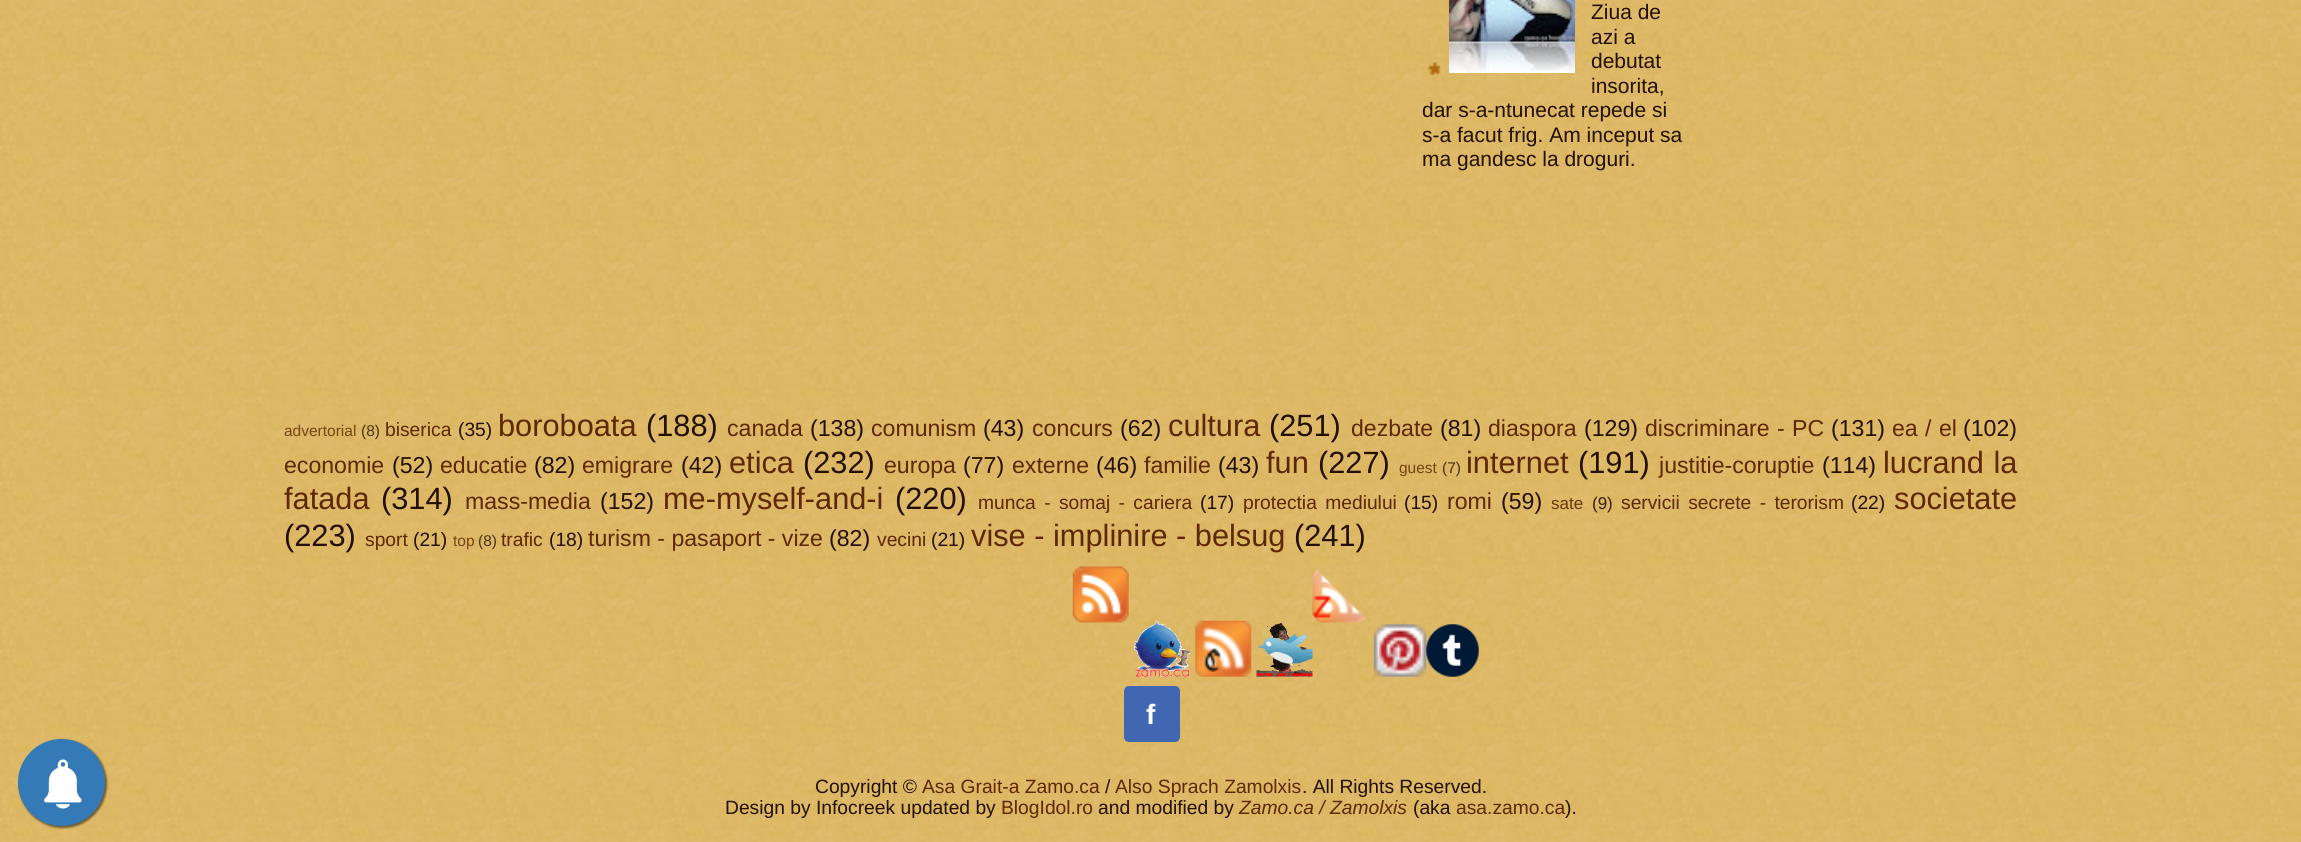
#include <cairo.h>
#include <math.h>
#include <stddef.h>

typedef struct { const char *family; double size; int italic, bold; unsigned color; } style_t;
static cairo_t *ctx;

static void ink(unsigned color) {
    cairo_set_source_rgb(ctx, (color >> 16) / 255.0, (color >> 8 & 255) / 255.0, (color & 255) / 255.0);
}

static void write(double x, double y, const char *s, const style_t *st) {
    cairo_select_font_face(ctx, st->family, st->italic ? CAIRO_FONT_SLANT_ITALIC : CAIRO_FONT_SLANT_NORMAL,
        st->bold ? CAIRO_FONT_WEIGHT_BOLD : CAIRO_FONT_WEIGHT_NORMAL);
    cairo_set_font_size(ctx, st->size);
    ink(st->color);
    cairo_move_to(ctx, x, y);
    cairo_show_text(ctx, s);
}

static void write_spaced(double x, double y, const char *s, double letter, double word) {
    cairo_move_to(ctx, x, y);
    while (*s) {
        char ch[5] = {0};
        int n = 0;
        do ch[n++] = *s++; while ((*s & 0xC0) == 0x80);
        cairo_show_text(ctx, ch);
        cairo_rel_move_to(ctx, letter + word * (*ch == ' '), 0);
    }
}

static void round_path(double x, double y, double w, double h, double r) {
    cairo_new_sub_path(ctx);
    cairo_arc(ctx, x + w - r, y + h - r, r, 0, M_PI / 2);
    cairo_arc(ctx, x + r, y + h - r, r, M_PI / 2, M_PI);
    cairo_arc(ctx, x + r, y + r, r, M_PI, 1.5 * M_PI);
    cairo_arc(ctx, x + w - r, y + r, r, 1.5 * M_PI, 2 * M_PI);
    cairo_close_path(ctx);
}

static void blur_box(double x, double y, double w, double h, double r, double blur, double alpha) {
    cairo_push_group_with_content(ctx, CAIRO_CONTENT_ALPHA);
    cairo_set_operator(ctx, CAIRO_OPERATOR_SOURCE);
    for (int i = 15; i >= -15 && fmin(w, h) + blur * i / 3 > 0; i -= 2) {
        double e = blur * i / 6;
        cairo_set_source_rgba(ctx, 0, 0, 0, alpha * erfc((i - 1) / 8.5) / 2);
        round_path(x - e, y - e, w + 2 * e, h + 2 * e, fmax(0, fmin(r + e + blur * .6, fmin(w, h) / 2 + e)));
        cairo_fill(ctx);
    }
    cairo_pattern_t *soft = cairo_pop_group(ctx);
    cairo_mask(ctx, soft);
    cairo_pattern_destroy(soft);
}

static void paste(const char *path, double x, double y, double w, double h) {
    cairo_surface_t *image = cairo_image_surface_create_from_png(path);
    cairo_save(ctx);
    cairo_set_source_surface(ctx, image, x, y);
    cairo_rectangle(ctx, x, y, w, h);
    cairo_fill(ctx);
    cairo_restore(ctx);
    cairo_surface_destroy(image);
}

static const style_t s1 = {"Liberation Sans", 21, 0, 0, 0x240f02};
static const style_t s2 = {"Liberation Sans", 15.5, 0, 0, 0x794315};
static const style_t s3 = {"Liberation Sans", 15.5, 0, 0, 0x493116};
static const style_t s4 = {"Liberation Sans", 19.25, 0, 0, 0x602600};
static const style_t s5 = {"Liberation Sans", 19.25, 0, 0, 0x240f02};
static const style_t s6 = {"Liberation Sans", 30.75, 0, 0, 0x602600};
static const style_t s7 = {"Liberation Sans", 30.75, 0, 0, 0x240f02};
static const style_t s8 = {"Liberation Sans", 23.1, 0, 0, 0x602600};
static const style_t s9 = {"Liberation Sans", 23.1, 0, 0, 0x240f02};
static const style_t s10 = {"Liberation Sans", 17, 0, 0, 0x6d350a};
static const style_t s11 = {"Liberation Sans", 17, 0, 0, 0x36200c};
static const style_t s12 = {"Liberation Sans", 28, 0, 1, 0xffffff};
static const style_t s13 = {"Liberation Sans", 19.25, 1, 0, 0x602600};

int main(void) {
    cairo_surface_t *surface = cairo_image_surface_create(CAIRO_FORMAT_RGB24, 2301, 842);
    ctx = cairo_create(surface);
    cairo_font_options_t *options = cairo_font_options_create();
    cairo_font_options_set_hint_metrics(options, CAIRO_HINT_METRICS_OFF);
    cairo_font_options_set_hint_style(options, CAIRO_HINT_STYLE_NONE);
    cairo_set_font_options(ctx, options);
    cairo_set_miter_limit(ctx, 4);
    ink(0xffffff);
    cairo_paint(ctx);
    paste("pic1.png", 0, 0, 2301, 842);
    paste("pic2.png", 1428, 62, 13, 13);
    paste("pic3.png", 1449, 0, 126, 73);
    write(1591, 19, "Ziua de", &s1);
    write(1591, 44, "azi a", &s1);
    write(1591, 68, "debutat", &s1);
    write(1591, 93, "insorita,", &s1);
    write(1422, 117, "dar s-a-ntunecat repede si", &s1);
    write(1422, 142, "s-a facut frig. Am inceput sa", &s1);
    write(1422, 166, "ma gandesc la droguri.", &s1);
    ink(0x000000);
    blur_box(19, 740, 88, 88, 44, 1, 0.5);
    ink(0x337ab7);
    cairo_arc(ctx, 61.5, 782.5, 43.5, 0, 2 * M_PI);
    cairo_fill(ctx);
    paste("pic4.png", 44, 759, 38, 50);
    write(284, 436, "advertorial", &s2);
    write(361, 436, "(8)", &s3);
    write(385, 436, "biserica", &s4);
    write(458, 436, "(35)", &s5);
    write(498, 436, "boroboata", &s6);
    write(646, 436, "(188)", &s7);
    write(727, 436, "canada", &s8);
    write(810, 436, "(138)", &s9);
    write(871, 436, "comunism", &s8);
    write(983, 436, "(43)", &s9);
    write(1032, 436, "concurs", &s8);
    write(1120, 436, "(62)", &s9);
    write(1168, 436, "cultura", &s6);
    write(1269, 436, "(251)", &s7);
    write(1351, 436, "dezbate", &s8);
    write(1440, 436, "(81)", &s9);
    write(1488, 436, "diaspora", &s8);
    write(1584, 436, "(129)", &s9);
    ink(0x602600);
    write_spaced(1645, 436, "discriminare - PC", 0, 1);
    write(1831, 436, "(131)", &s9);
    ink(0x602600);
    write_spaced(1892, 436, "ea / el", 0, 1);
    write(1963, 436, "(102)", &s9);
    write(284, 473, "economie", &s8);
    write(392, 473, "(52)", &s9);
    write(440, 473, "educatie", &s8);
    write(534, 473, "(82)", &s9);
    write(582, 473, "emigrare", &s8);
    write(681, 473, "(42)", &s9);
    write(729, 473, "etica", &s6);
    write(803, 473, "(232)", &s7);
    write(884, 473, "europa", &s8);
    write(963, 473, "(77)", &s9);
    write(1012, 473, "externe", &s8);
    write(1096, 473, "(46)", &s9);
    write(1144, 473, "familie", &s8);
    write(1218, 473, "(43)", &s9);
    write(1266, 473, "fun", &s6);
    write(1318, 473, "(227)", &s7);
    write(1399, 473, "guest", &s2);
    write(1442, 473, "(7)", &s3);
    write(1466, 473, "internet", &s6);
    write(1578, 473, "(191)", &s7);
    write(1659, 473, "justitie-coruptie", &s8);
    write(1822, 473, "(114)", &s9);
    cairo_set_font_size(ctx, 30.75);
    ink(0x602600);
    write_spaced(1883, 473, "lucrand la", 0, 1);
    write(284, 509, "fatada", &s6);
    write(381, 509, "(314)", &s7);
    write(465, 509, "mass-media", &s8);
    write(600, 509, "(152)", &s9);
    write(663, 509, "me-myself-and-i", &s6);
    write(895, 509, "(220)", &s7);
    cairo_set_font_size(ctx, 19.25);
    ink(0x602600);
    write_spaced(978, 509, "munca - somaj - cariera", 0, 3);
    write(1200, 509, "(17)", &s5);
    ink(0x602600);
    write_spaced(1243, 509, "protectia mediului", 0, 3);
    write(1404, 509, "(15)", &s5);
    write(1447, 509, "romi", &s8);
    write(1501, 509, "(59)", &s9);
    write(1551, 509, "sate", &s10);
    write(1592, 509, "(9)", &s11);
    cairo_set_font_size(ctx, 19.25);
    ink(0x602600);
    write_spaced(1621, 509, "servicii secrete - terorism", 0, 3);
    write(1851, 509, "(22)", &s5);
    write(1894, 509, "societate", &s6);
    write(284, 546, "(223)", &s7);
    write(365, 546, "sport", &s4);
    write(413, 546, "(21)", &s5);
    write(453, 546, "top", &s2);
    write(478, 546, "(8)", &s3);
    write(501, 546, "trafic", &s4);
    write(549, 546, "(18)", &s5);
    write(588, 546, "turism - pasaport - vize", &s8);
    write(829, 546, "(82)", &s9);
    write(877, 546, "vecini", &s4);
    write(931, 546, "(21)", &s5);
    write(971, 546, "vise - implinire - belsug", &s6);
    write(1294, 546, "(241)", &s7);
    paste("pic5.png", 1072, 566, 57, 57);
    paste("pic6.png", 1312, 569, 54, 54);
    paste("pic7.png", 1134, 620, 56, 57);
    paste("pic8.png", 1195, 620, 57, 57);
    paste("pic9.png", 1256, 623, 57, 54);
    paste("pic10.png", 1373, 624, 54, 53);
    paste("pic11.png", 1426, 624, 53, 53);
    ink(0x4267b2);
    round_path(1124, 686, 56, 56, 5);
    cairo_fill(ctx);
    write(1146, 724, "f", &s12);
    write(815, 793, "Copyright ©", &s5);
    write(922, 793, "Asa Grait-a Zamo.ca", &s4);
    write(1105, 793, "/", &s5);
    write(1115, 793, "Also Sprach Zamolxis", &s4);
    write(1302, 793, ". All Rights Reserved.", &s5);
    write(725, 814, "Design by Infocreek updated by", &s5);
    write(1001, 814, "BlogIdol.ro", &s4);
    write(1098, 814, "and modified by", &s5);
    write(1239, 814, "Zamo.ca / Zamolxis", &s13);
    write(1413, 814, "(aka", &s5);
    write(1456, 814, "asa.zamo.ca", &s4);
    write(1565, 814, ").", &s5);
    cairo_surface_write_to_png(surface, "screenshot.png");
    cairo_font_options_destroy(options);
    cairo_destroy(ctx);
    cairo_surface_destroy(surface);
    return 0;
}
